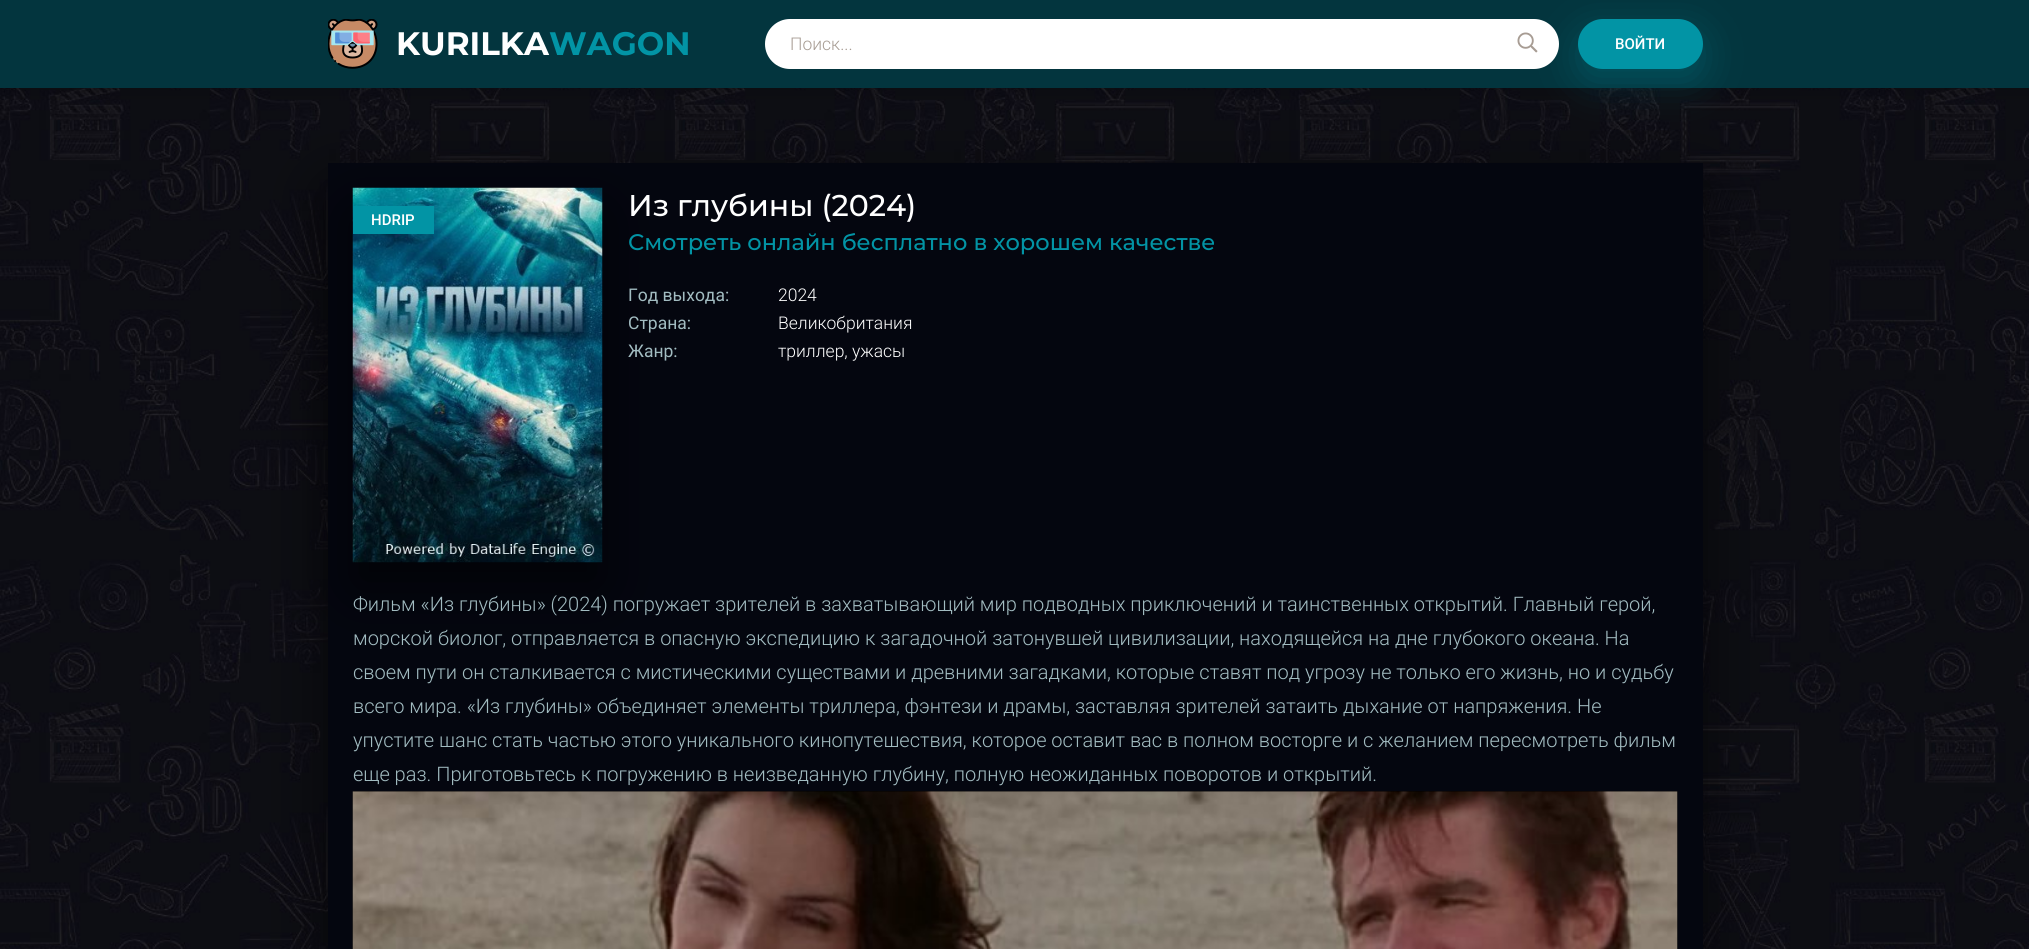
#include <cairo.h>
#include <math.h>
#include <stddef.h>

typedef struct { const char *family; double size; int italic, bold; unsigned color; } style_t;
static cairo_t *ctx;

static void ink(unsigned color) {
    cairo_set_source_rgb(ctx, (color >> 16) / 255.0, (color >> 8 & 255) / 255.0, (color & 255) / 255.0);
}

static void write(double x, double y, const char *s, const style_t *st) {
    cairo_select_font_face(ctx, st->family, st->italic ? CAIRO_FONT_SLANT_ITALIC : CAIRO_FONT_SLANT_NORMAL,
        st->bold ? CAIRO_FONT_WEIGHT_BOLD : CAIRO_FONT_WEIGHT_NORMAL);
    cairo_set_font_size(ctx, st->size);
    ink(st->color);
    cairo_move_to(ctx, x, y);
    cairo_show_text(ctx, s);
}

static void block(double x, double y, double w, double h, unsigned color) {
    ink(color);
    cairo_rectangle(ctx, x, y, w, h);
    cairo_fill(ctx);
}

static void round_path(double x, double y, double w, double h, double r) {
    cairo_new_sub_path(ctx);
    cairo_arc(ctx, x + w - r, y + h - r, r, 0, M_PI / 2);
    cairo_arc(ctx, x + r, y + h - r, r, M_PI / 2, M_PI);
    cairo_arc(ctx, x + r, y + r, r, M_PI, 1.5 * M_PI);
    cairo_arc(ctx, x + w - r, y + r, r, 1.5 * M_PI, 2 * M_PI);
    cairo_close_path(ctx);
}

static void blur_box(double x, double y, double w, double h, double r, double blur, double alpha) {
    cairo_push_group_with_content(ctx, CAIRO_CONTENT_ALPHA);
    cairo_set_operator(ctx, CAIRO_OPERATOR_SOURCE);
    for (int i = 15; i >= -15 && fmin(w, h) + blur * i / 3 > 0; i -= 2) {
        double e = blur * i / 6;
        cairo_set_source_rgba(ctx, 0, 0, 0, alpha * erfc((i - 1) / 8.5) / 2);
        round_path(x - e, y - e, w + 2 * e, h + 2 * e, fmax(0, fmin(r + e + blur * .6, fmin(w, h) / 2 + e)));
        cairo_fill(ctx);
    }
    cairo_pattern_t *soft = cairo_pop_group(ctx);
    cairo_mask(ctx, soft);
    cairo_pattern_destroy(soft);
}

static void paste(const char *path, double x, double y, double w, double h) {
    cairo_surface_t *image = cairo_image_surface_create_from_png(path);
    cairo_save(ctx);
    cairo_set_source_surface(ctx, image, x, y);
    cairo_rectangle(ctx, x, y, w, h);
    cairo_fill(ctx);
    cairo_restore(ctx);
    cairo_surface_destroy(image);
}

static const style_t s1 = {"Montserrat", 32.5, 0, 1, 0xffffff};
static const style_t s2 = {"Montserrat", 32.5, 0, 1, 0x0294a5};
static const style_t s3 = {"Roboto Light", 17.5, 0, 0, 0xa79c93};
static const style_t s4 = {"Roboto Medium", 15, 0, 0, 0xffffff};
static const style_t s5 = {"Montserrat Medium", 30, 0, 0, 0xffffff};
static const style_t s6 = {"Montserrat Medium", 22.5, 0, 0, 0x0294a5};
static const style_t s7 = {"Roboto", 17.5, 0, 0, 0xa2bcc1};
static const style_t s8 = {"Roboto Light", 17.5, 0, 0, 0xffffff};
static const style_t s9 = {"Roboto Light", 20, 0, 0, 0xa2bcc1};

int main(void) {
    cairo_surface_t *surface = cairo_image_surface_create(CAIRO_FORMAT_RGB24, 2029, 949);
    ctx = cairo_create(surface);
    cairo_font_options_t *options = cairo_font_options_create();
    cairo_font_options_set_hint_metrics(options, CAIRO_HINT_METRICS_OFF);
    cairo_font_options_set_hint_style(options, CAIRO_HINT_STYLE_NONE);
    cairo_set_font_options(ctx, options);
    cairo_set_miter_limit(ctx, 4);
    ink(0xffffff);
    cairo_paint(ctx);
    paste("pic1.png", 0, 88, 2029, 861);
    ink(0x000000);
    blur_box(-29, 0, 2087, 88, 0, 9.5, 0.2);
    block(0, 0, 2029, 88, 0x03353e);
    paste("pic2.png", 328, 19, 50, 50);
    write(396, 55, "KURILKA", &s1);
    write(549, 55, "WAGON", &s2);
    ink(0x0294a5);
    blur_box(1578, 31, 125, 50, 25, 19, 0.3);
    ink(0xffffff);
    round_path(765, 19, 794, 50, 25);
    cairo_fill(ctx);
    write(790, 50, "Поиск...", &s3);
    paste("pic3.png", 1517, 32, 21, 21);
    ink(0x0294a5);
    round_path(1578, 19, 125, 50, 25);
    cairo_fill(ctx);
    write(1615, 49, "ВОЙТИ", &s4);
    ink(0x000000);
    blur_box(328, 188, 1375, 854, 0, 31, 0.6);
    block(328, 163, 1375, 786, 0x04060f);
    ink(0x000000);
    blur_box(353, 213, 250, 375, 0, 31, 0.6);
    paste("pic4.png", 352, 187, 251, 376);
    block(353, 206, 81, 28, 0x0294a5);
    write(371, 225, "HDRIP", &s4);
    write(628, 216, "Из глубины (2024)", &s5);
    write(628, 250, "Смотреть онлайн бесплатно в хорошем качестве", &s6);
    write(628, 301, "Год выхода:", &s7);
    write(778, 301, "2024", &s8);
    write(628, 329, "Страна:", &s7);
    write(778, 329, "Великобритания", &s8);
    write(628, 357, "Жанр:", &s7);
    write(778, 357, "триллер, ужасы", &s8);
    write(353, 611, "Фильм «Из глубины» (2024) погружает зрителей в захватывающий мир подводных приключений и таинственных открытий. Главный герой,", &s9);
    write(353, 645, "морской биолог, отправляется в опасную экспедицию к загадочной затонувшей цивилизации, находящейся на дне глубокого океана. На", &s9);
    write(353, 679, "своем пути он сталкивается с мистическими существами и древними загадками, которые ставят под угрозу не только его жизнь, но и судьбу", &s9);
    write(353, 713, "всего мира. «Из глубины» объединяет элементы триллера, фэнтези и драмы, заставляя зрителей затаить дыхание от напряжения. Не", &s9);
    write(353, 747, "упустите шанс стать частью этого уникального кинопутешествия, которое оставит вас в полном восторге и с желанием пересмотреть фильм", &s9);
    write(353, 781, "еще раз. Приготовьтесь к погружению в неизведанную глубину, полную неожиданных поворотов и открытий.", &s9);
    paste("pic5.png", 352, 791, 1326, 158);
    cairo_surface_write_to_png(surface, "screenshot.png");
    cairo_font_options_destroy(options);
    cairo_destroy(ctx);
    cairo_surface_destroy(surface);
    return 0;
}
